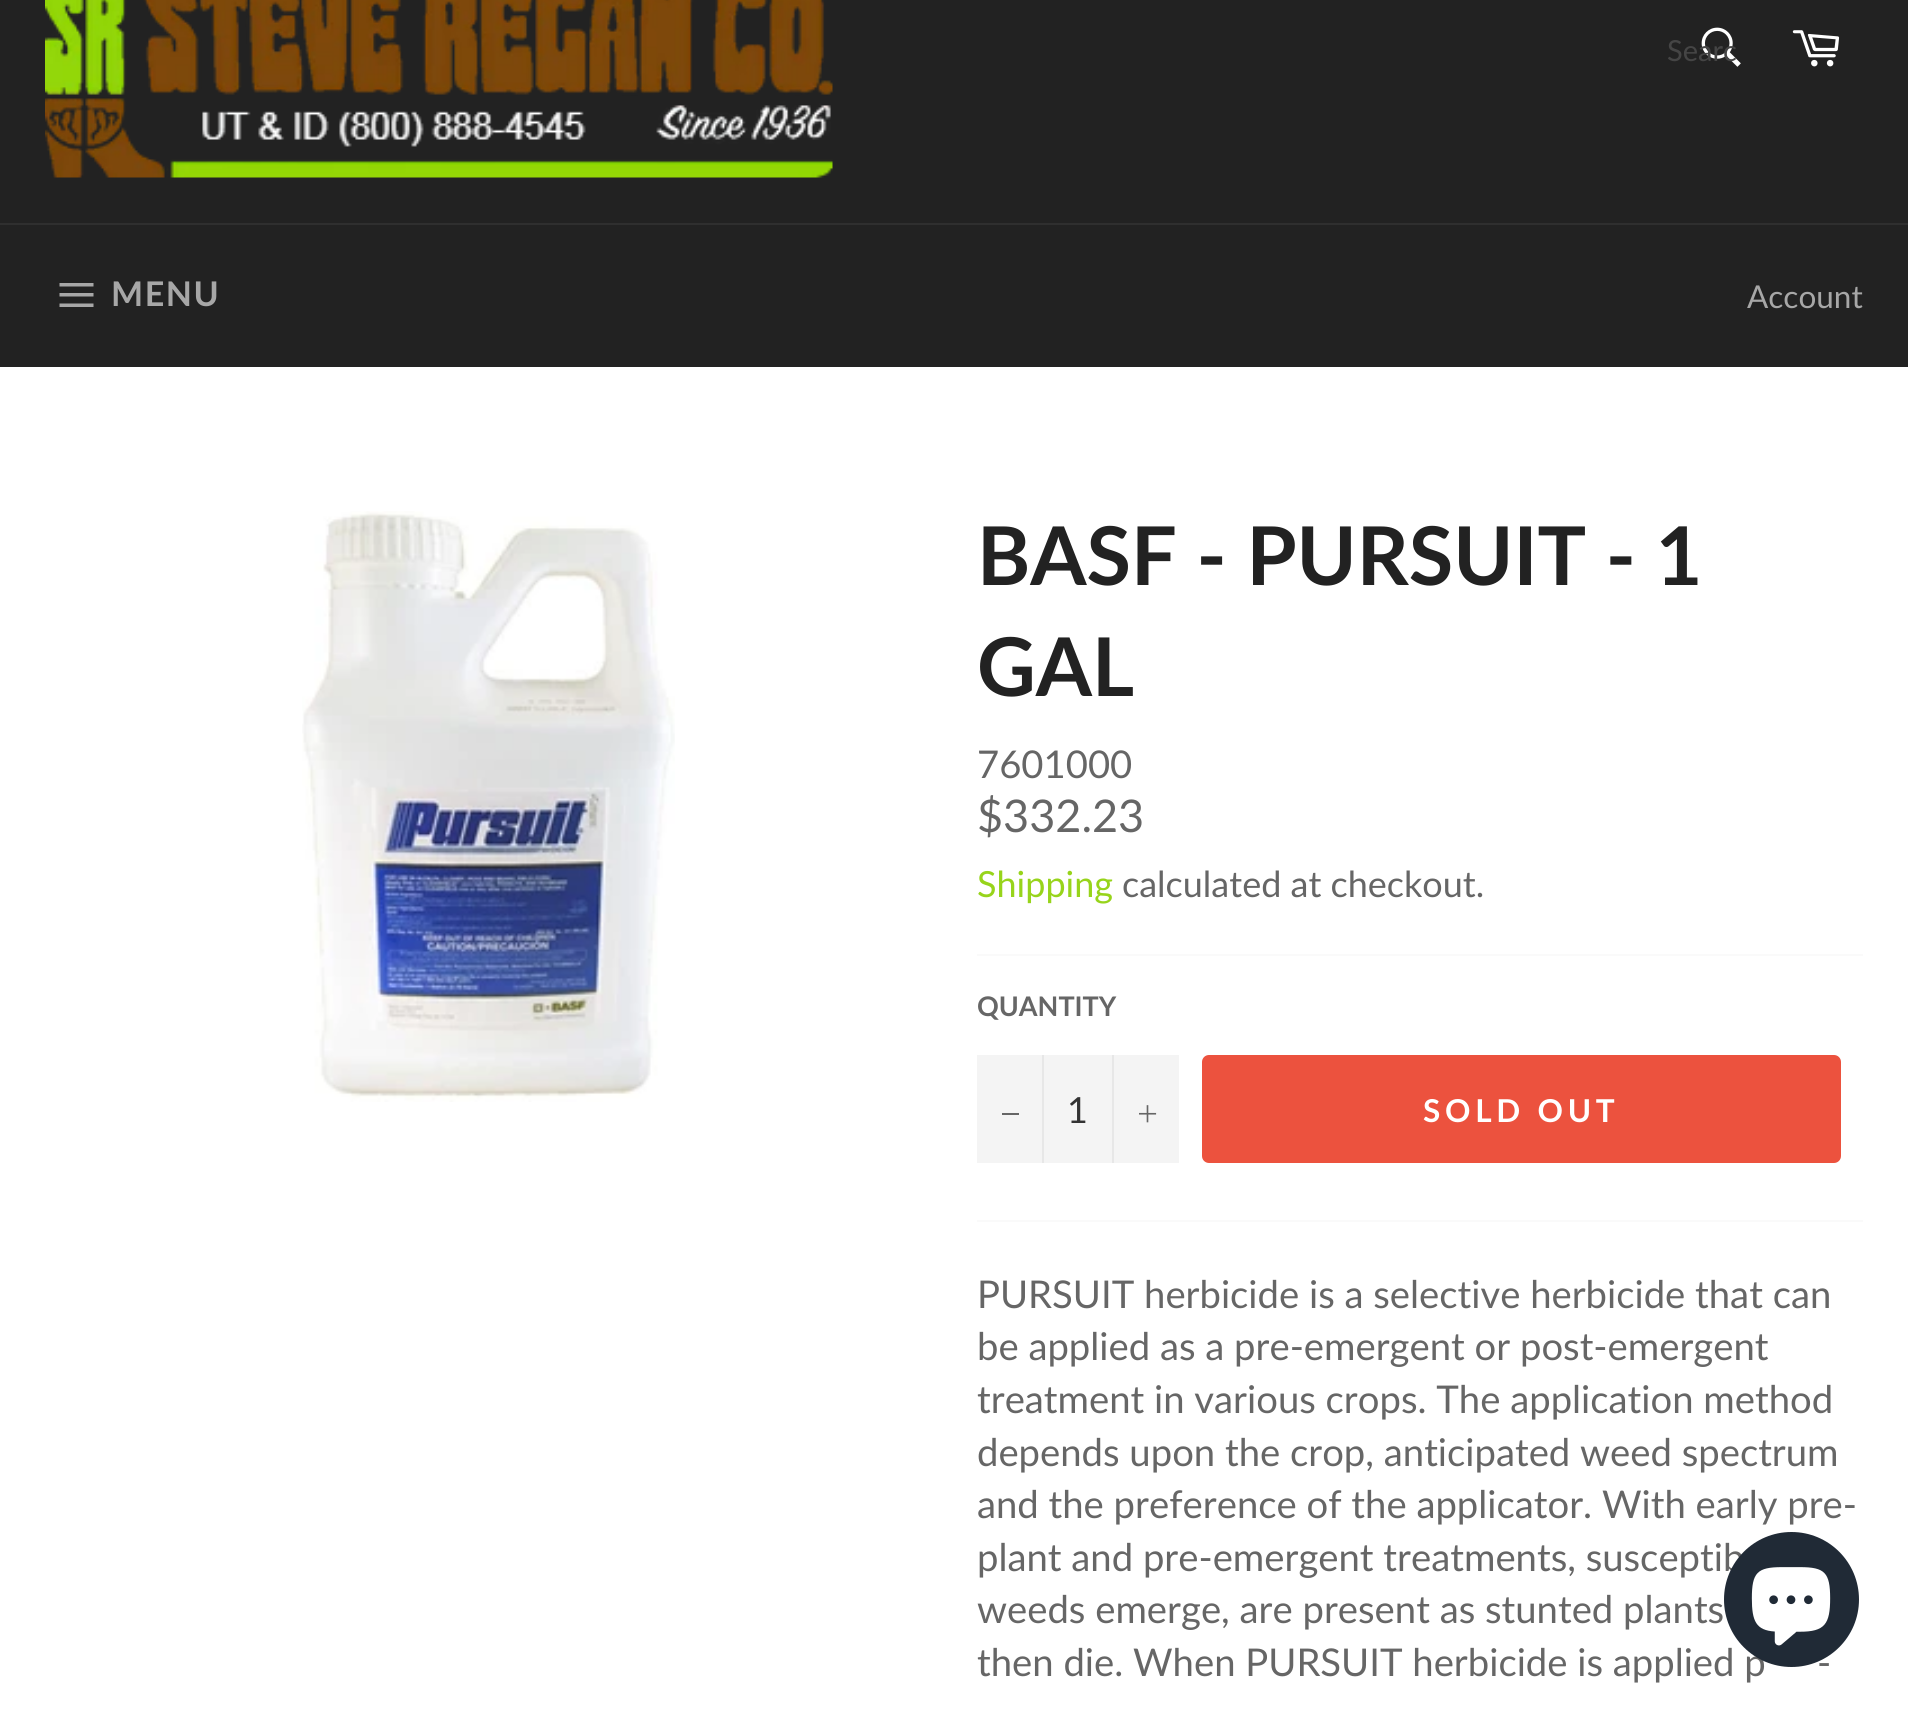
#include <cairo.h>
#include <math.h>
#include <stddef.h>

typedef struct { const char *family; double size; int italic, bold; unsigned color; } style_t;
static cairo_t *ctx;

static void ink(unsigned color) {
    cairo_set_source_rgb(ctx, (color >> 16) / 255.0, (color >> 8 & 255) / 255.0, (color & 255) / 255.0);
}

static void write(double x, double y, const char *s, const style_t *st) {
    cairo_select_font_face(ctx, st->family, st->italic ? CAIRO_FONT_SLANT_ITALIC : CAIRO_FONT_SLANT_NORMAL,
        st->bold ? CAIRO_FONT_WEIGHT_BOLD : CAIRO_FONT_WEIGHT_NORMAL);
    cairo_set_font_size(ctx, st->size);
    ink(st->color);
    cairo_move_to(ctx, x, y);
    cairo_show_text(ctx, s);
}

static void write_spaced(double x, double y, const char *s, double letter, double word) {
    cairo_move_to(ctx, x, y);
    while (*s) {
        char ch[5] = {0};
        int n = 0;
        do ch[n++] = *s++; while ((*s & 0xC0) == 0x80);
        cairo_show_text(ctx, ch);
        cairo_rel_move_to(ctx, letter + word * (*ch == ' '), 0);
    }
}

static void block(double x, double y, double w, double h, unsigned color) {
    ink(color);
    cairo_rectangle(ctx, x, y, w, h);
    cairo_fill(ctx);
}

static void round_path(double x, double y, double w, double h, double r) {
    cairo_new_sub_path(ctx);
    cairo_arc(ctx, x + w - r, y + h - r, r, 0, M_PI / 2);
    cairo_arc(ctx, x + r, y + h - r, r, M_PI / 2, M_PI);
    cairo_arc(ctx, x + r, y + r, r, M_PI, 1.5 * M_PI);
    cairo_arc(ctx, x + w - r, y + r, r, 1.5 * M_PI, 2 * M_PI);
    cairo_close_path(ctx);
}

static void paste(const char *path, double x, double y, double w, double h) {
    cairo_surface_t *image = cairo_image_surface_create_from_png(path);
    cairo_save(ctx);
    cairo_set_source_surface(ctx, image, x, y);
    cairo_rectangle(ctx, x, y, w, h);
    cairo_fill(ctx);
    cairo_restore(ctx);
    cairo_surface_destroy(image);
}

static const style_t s1 = {"Lato", 29, 0, 0, 0x454545};
static const style_t s2 = {"Lato", 31.5, 0, 0, 0xa7a7a7};
static const style_t s3 = {"Lato", 81, 0, 1, 0x222222};
static const style_t s4 = {"Lato", 38.25, 0, 0, 0x666666};
static const style_t s5 = {"Lato", 45, 0, 0, 0x666666};
static const style_t s6 = {"Lato", 36, 0, 0, 0x97d41b};
static const style_t s7 = {"Lato", 36, 0, 0, 0x666666};
static const style_t s8 = {"Lato", 27, 0, 1, 0x666666};
static const style_t s9 = {"Lato", 36, 0, 0, 0x333333};

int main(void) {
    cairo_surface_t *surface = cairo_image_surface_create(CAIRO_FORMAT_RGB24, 1908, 1713);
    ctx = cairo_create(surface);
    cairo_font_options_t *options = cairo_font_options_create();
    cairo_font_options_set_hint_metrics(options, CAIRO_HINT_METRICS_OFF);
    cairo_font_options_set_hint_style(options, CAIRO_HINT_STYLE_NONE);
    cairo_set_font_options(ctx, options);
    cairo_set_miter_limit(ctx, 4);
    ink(0x222222);
    cairo_paint(ctx);
    paste("pic1.png", 45, 0, 788, 178);
    paste("pic2.png", 1701, 27, 40, 40);
    write(1667, 61, "Searc", &s1);
    paste("pic3.png", 1792, 30, 48, 37);
    block(0, 223, 1908, 2, 0x2f2f2f);
    ink(0xa7a7a7);
    cairo_new_path(ctx);
    cairo_move_to(ctx, 59.5, 293);
    cairo_line_to(ctx, 93.5, 293);
    cairo_line_to(ctx, 93.5, 296.5);
    cairo_line_to(ctx, 59.5, 296.5);
    cairo_close_path(ctx);
    cairo_move_to(ctx, 59.5, 283);
    cairo_line_to(ctx, 93.5, 283);
    cairo_line_to(ctx, 93.5, 286.5);
    cairo_line_to(ctx, 59.5, 286.5);
    cairo_close_path(ctx);
    cairo_move_to(ctx, 59.5, 303.5);
    cairo_line_to(ctx, 93.5, 303.5);
    cairo_line_to(ctx, 93.5, 307);
    cairo_line_to(ctx, 59.5, 307);
    cairo_close_path(ctx);
    cairo_fill(ctx);
    cairo_select_font_face(ctx, "Lato", CAIRO_FONT_SLANT_NORMAL, CAIRO_FONT_WEIGHT_BOLD);
    cairo_set_font_size(ctx, 34);
    write_spaced(111, 306, "MENU", 1.5, 0);
    write(1747, 308, "Account", &s2);
    block(0, 367, 1908, 1346, 0xffffff);
    paste("pic4.png", 302, 511, 373, 591);
    write(977, 585, "BASF - PURSUIT - 1", &s3);
    write(977, 696, "GAL", &s3);
    write(977, 778, "7601000", &s4);
    write(977, 832, "$332.23", &s5);
    write(977, 897, "Shipping", &s6);
    write(1122, 897, "calculated at checkout.", &s7);
    block(977, 954, 886, 2, 0xfafafa);
    write(977, 1016, "QUANTITY", &s8);
    block(977, 1055, 202, 108, 0xf4f4f4);
    block(1042, 1055, 2, 108, 0xe7e7e7);
    block(1002, 1113, 17, 2, 0x666666);
    write(1067, 1123, "1", &s9);
    block(1112, 1055, 2, 108, 0xe7e7e7);
    paste("pic5.png", 1139, 1105, 18, 18);
    ink(0xec523e);
    round_path(1202, 1055, 639, 108, 7);
    cairo_fill(ctx);
    cairo_select_font_face(ctx, "Lato", CAIRO_FONT_SLANT_NORMAL, CAIRO_FONT_WEIGHT_BOLD);
    cairo_set_font_size(ctx, 31.5);
    ink(0xffffff);
    write_spaced(1423, 1122, "SOLD OUT", 4.75, 0);
    block(977, 1220, 886, 2, 0xfafafa);
    write(977, 1308, "PURSUIT herbicide is a selective herbicide that can", &s4);
    write(977, 1360, "be applied as a pre-emergent or post-emergent", &s4);
    write(977, 1413, "treatment in various crops. The application method", &s4);
    write(977, 1466, "depends upon the crop, anticipated weed spectrum", &s4);
    write(977, 1518, "and the preference of the applicator. With early pre-", &s4);
    write(977, 1571, "plant and pre-emergent treatments, susceptib", &s4);
    write(977, 1623, "weeds emerge, are present as stunted plants", &s4);
    write(977, 1676, "then die. When PURSUIT herbicide is applied p", &s4);
    write(1817, 1676, "-", &s4);
    ink(0x202a36);
    cairo_new_path(ctx);
    cairo_arc(ctx, 1791.5, 1599.5, 67.5, 0, 2 * M_PI);
    cairo_fill(ctx);
    paste("pic6.png", 1751, 1567, 80, 79);
    cairo_surface_write_to_png(surface, "screenshot.png");
    cairo_font_options_destroy(options);
    cairo_destroy(ctx);
    cairo_surface_destroy(surface);
    return 0;
}
